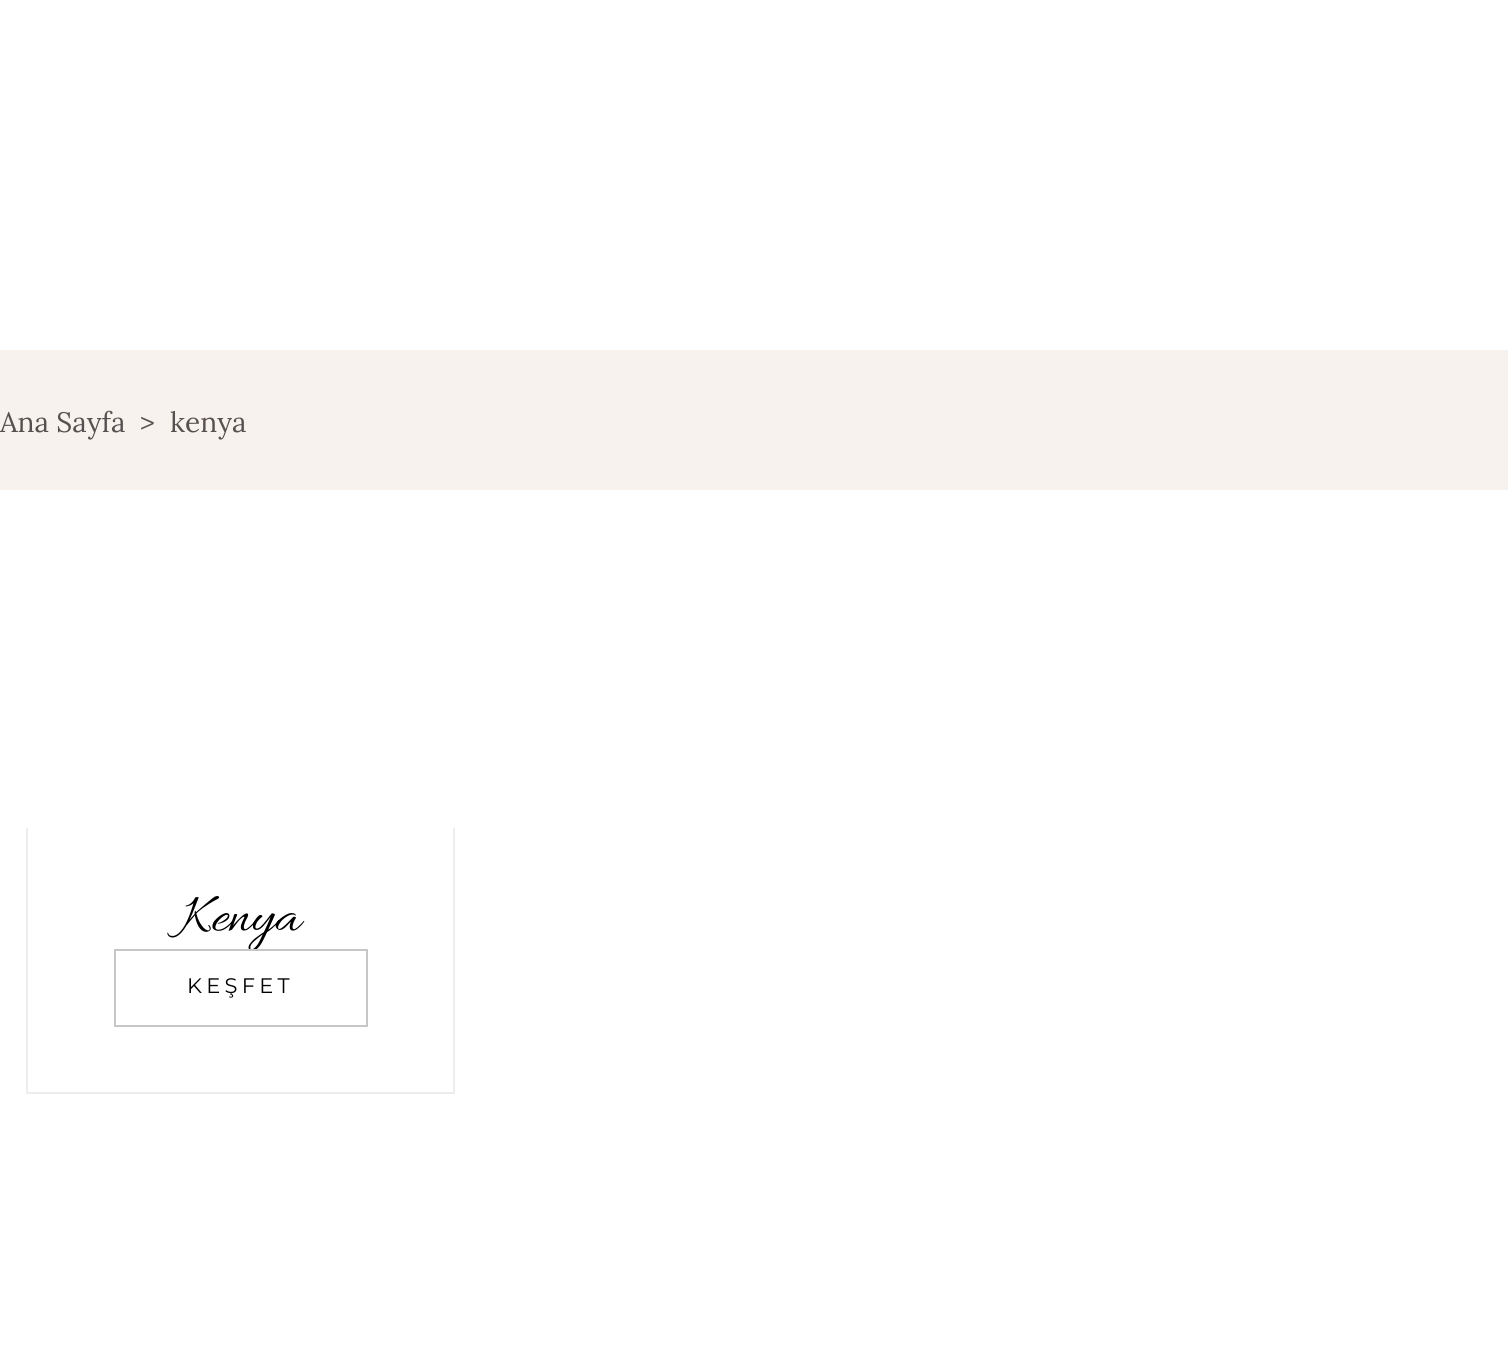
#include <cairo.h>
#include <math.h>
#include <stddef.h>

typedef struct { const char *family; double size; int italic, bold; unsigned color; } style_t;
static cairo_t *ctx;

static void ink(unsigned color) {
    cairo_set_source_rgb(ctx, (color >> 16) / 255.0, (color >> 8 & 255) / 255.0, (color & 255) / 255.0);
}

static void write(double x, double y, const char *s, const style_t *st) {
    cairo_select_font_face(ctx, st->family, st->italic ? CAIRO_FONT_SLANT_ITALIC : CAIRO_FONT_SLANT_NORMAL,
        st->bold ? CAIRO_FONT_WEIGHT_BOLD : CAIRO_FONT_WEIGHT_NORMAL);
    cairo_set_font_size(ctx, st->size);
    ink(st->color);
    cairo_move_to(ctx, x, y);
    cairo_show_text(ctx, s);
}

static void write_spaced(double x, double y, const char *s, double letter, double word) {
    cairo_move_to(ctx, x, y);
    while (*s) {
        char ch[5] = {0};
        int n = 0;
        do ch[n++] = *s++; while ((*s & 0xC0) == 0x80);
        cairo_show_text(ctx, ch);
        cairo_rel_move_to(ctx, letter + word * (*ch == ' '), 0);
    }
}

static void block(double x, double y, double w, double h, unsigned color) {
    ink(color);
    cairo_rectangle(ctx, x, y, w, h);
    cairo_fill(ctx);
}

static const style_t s1 = {"Lora", 28, 0, 0, 0x565050};
static const style_t s2 = {"Allura", 56, 0, 0, 0x000000};

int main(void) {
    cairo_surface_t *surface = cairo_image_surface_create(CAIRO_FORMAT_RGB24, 1508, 1345);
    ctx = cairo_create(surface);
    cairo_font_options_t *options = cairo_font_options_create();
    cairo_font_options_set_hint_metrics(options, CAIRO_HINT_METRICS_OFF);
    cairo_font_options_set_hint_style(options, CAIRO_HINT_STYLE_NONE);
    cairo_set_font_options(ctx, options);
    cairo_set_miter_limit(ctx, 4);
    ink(0xffffff);
    cairo_paint(ctx);
    block(0, 350, 1508, 140, 0xf7f2ee);
    write(0, 432, "Ana Sayfa", &s1);
    write(140, 432, ">", &s1);
    write(170, 432, "kenya", &s1);
    block(453, 828, 2, 266, 0xededed);
    block(26, 1092, 429, 2, 0xededed);
    block(26, 828, 2, 266, 0xededed);
    write(180, 930, "Kenya", &s2);
    cairo_rectangle(ctx, 115, 950, 252, 76);
    ink(0xc6c6c6);
    cairo_stroke(ctx);
    cairo_select_font_face(ctx, "Montserrat", CAIRO_FONT_SLANT_NORMAL, CAIRO_FONT_WEIGHT_NORMAL);
    cairo_set_font_size(ctx, 21);
    ink(0x000000);
    write_spaced(187, 993, "KEŞFET", 4.25, 0);
    cairo_surface_write_to_png(surface, "screenshot.png");
    cairo_font_options_destroy(options);
    cairo_destroy(ctx);
    cairo_surface_destroy(surface);
    return 0;
}
